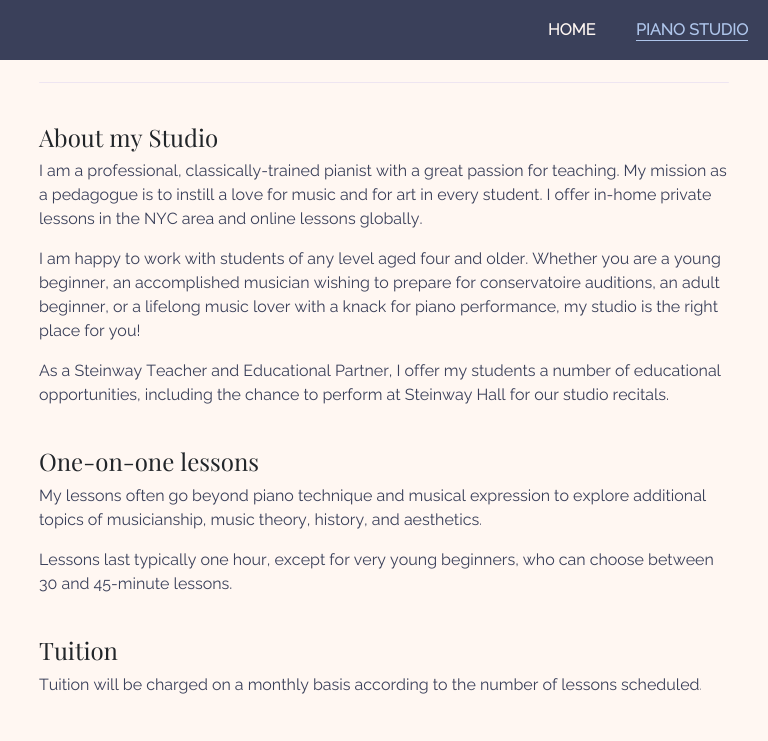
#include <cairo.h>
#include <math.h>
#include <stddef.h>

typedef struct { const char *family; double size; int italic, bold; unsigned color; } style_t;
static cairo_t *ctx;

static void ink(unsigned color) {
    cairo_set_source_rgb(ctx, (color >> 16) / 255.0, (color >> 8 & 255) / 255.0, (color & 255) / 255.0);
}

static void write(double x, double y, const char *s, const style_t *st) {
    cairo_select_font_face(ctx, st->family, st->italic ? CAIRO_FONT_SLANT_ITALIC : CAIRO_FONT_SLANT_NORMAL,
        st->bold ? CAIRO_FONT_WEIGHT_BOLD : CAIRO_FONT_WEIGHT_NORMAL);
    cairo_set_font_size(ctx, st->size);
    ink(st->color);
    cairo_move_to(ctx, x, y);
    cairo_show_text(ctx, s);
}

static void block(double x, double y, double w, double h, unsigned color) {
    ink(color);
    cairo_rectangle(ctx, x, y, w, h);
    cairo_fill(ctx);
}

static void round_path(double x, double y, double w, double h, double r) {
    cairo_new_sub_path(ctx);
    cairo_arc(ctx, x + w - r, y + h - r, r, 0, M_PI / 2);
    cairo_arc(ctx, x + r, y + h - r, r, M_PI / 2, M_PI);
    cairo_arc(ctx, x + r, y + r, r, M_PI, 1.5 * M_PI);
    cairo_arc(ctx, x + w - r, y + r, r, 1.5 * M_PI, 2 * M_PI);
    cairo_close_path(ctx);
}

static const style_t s1 = {"Raleway", 16, 0, 1, 0xfff7f2};
static const style_t s2 = {"Raleway", 16, 0, 1, 0xaec5eb};
static const style_t s3 = {"Playfair Display", 24, 0, 0, 0x212529};
static const style_t s4 = {"Raleway Thin", 16, 0, 0, 0x3a405a};

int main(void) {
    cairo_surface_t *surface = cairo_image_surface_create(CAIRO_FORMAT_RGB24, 768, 741);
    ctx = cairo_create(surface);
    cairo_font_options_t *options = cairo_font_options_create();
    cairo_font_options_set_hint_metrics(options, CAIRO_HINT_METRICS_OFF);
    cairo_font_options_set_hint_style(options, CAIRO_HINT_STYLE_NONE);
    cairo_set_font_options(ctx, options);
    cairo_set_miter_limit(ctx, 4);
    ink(0xfff7f2);
    cairo_paint(ctx);
    block(0, 0, 768, 60, 0x3a405a);
    write(548, 35, "HOME", &s1);
    write(636, 35, "PIANO STUDIO", &s2);
    block(636, 40, 112, 1, 0xaec5eb);
    ink(0xeee5f1);
    round_path(39, 82, 690, 1, 0.5);
    cairo_fill(ctx);
    write(39, 147, "About my Studio", &s3);
    write(39, 176, "I am a professional, classically-trained pianist with a great passion for teaching. My mission as", &s4);
    write(39, 200, "a pedagogue is to instill a love for music and for art in every student. I offer in-home private", &s4);
    write(39, 224, "lessons in the NYC area and online lessons globally.", &s4);
    write(39, 264, "I am happy to work with students of any level aged four and older. Whether you are a young", &s4);
    write(39, 288, "beginner, an accomplished musician wishing to prepare for conservatoire auditions, an adult", &s4);
    write(39, 312, "beginner, or a lifelong music lover with a knack for piano performance, my studio is the right", &s4);
    write(39, 336, "place for you!", &s4);
    write(39, 376, "As a Steinway Teacher and Educational Partner, I offer my students a number of educational", &s4);
    write(39, 400, "opportunities, including the chance to perform at Steinway Hall for our studio recitals.", &s4);
    write(39, 471, "One-on-one lessons", &s3);
    write(39, 501, "My lessons often go beyond piano technique and musical expression to explore additional", &s4);
    write(39, 525, "topics of musicianship, music theory, history, and aesthetics.", &s4);
    write(39, 565, "Lessons last typically one hour, except for very young beginners, who can choose between", &s4);
    write(39, 589, "30 and 45-minute lessons.", &s4);
    write(39, 660, "Tuition", &s3);
    write(39, 690, "Tuition will be charged on a monthly basis according to the number of lessons scheduled.", &s4);
    cairo_surface_write_to_png(surface, "screenshot.png");
    cairo_font_options_destroy(options);
    cairo_destroy(ctx);
    cairo_surface_destroy(surface);
    return 0;
}
